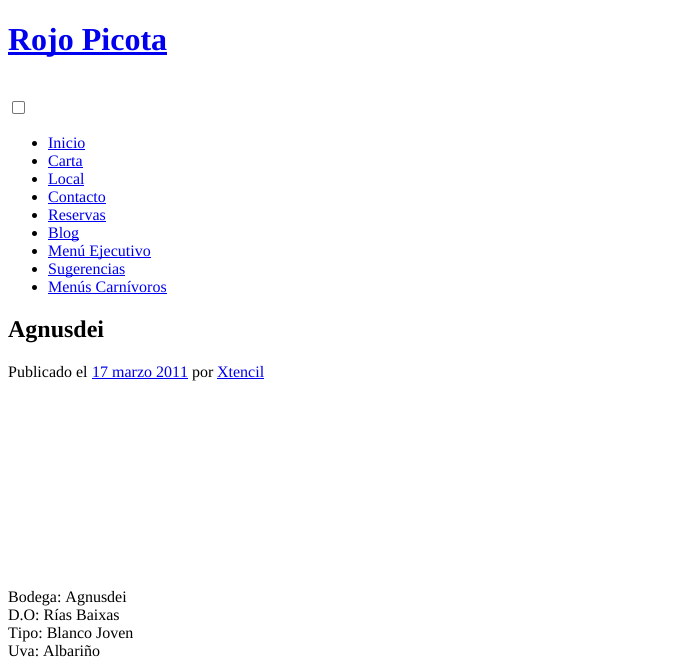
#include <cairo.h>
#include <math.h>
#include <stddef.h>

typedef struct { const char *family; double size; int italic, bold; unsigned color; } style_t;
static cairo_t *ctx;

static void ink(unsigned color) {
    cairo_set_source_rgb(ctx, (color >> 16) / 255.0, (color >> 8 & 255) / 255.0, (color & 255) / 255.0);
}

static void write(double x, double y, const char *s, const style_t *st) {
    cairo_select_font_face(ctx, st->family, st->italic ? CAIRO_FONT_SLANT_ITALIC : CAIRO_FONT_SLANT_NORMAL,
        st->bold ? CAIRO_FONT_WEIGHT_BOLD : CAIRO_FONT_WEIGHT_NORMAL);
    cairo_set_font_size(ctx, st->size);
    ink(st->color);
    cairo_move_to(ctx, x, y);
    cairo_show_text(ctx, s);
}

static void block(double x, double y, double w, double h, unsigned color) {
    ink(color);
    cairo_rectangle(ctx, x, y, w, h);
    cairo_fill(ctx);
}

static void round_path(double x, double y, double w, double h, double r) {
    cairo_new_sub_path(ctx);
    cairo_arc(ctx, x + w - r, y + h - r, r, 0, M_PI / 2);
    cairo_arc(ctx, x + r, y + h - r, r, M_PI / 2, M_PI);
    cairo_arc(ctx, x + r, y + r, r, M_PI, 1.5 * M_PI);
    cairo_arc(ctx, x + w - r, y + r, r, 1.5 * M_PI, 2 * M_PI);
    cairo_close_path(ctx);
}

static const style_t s1 = {"Liberation Serif", 32, 0, 1, 0x0000ee};
static const style_t s2 = {"Liberation Serif", 16, 0, 0, 0x0000ee};
static const style_t s3 = {"Liberation Serif", 24, 0, 1, 0x000000};
static const style_t s4 = {"Liberation Serif", 16, 0, 0, 0x000000};

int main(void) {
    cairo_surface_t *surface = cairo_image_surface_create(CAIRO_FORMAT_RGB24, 674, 667);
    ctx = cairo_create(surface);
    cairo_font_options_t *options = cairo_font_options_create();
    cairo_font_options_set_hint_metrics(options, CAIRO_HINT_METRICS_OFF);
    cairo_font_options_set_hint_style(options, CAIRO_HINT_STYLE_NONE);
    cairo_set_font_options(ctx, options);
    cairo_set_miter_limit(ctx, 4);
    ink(0xffffff);
    cairo_paint(ctx);
    block(8, 52, 159, 3, 0x0000ee);
    write(8, 50, "Rojo Picota", &s1);
    round_path(12.5, 101.5, 12, 12, 1.5);
    ink(0x767676);
    cairo_set_line_width(ctx, 1);
    cairo_stroke(ctx);
    ink(0x000000);
    cairo_arc(ctx, 34.5, 143.5, 2.5, 0, 2 * M_PI);
    cairo_fill(ctx);
    write(48, 148, "Inicio", &s2);
    block(48, 149, 37, 1, 0x0000ee);
    ink(0x000000);
    cairo_new_path(ctx);
    cairo_arc(ctx, 34.5, 161.5, 2.5, 0, 2 * M_PI);
    cairo_fill(ctx);
    write(48, 166, "Carta", &s2);
    block(48, 167, 35, 1, 0x0000ee);
    ink(0x000000);
    cairo_new_path(ctx);
    cairo_arc(ctx, 34.5, 179.5, 2.5, 0, 2 * M_PI);
    cairo_fill(ctx);
    write(48, 184, "Local", &s2);
    block(48, 185, 36, 1, 0x0000ee);
    ink(0x000000);
    cairo_new_path(ctx);
    cairo_arc(ctx, 34.5, 197.5, 2.5, 0, 2 * M_PI);
    cairo_fill(ctx);
    write(48, 202, "Contacto", &s2);
    block(48, 203, 58, 1, 0x0000ee);
    ink(0x000000);
    cairo_new_path(ctx);
    cairo_arc(ctx, 34.5, 215.5, 2.5, 0, 2 * M_PI);
    cairo_fill(ctx);
    write(48, 220, "Reservas", &s2);
    block(48, 221, 58, 1, 0x0000ee);
    ink(0x000000);
    cairo_new_path(ctx);
    cairo_arc(ctx, 34.5, 233.5, 2.5, 0, 2 * M_PI);
    cairo_fill(ctx);
    block(48, 239, 31, 1, 0x0000ee);
    write(48, 238, "Blog", &s2);
    ink(0x000000);
    cairo_new_path(ctx);
    cairo_arc(ctx, 34.5, 251.5, 2.5, 0, 2 * M_PI);
    cairo_fill(ctx);
    block(48, 257, 103, 1, 0x0000ee);
    write(48, 256, "Menú Ejecutivo", &s2);
    ink(0x000000);
    cairo_new_path(ctx);
    cairo_arc(ctx, 34.5, 269.5, 2.5, 0, 2 * M_PI);
    cairo_fill(ctx);
    block(48, 275, 77, 1, 0x0000ee);
    write(48, 274, "Sugerencias", &s2);
    ink(0x000000);
    cairo_new_path(ctx);
    cairo_arc(ctx, 34.5, 287.5, 2.5, 0, 2 * M_PI);
    cairo_fill(ctx);
    write(48, 292, "Menús Carnívoros", &s2);
    block(48, 293, 119, 1, 0x0000ee);
    write(8, 337, "Agnusdei", &s3);
    write(8, 377, "Publicado el", &s4);
    write(92, 377, "17 marzo 2011", &s2);
    block(92, 378, 96, 1, 0x0000ee);
    write(192, 377, "por", &s4);
    write(217, 377, "Xtencil", &s2);
    block(217, 378, 47, 1, 0x0000ee);
    write(8, 602, "Bodega: Agnusdei", &s4);
    write(8, 620, "D.O: Rías Baixas", &s4);
    write(8, 638, "Tipo: Blanco Joven", &s4);
    write(8, 656, "Uva: Albariño", &s4);
    cairo_surface_write_to_png(surface, "screenshot.png");
    cairo_font_options_destroy(options);
    cairo_destroy(ctx);
    cairo_surface_destroy(surface);
    return 0;
}
